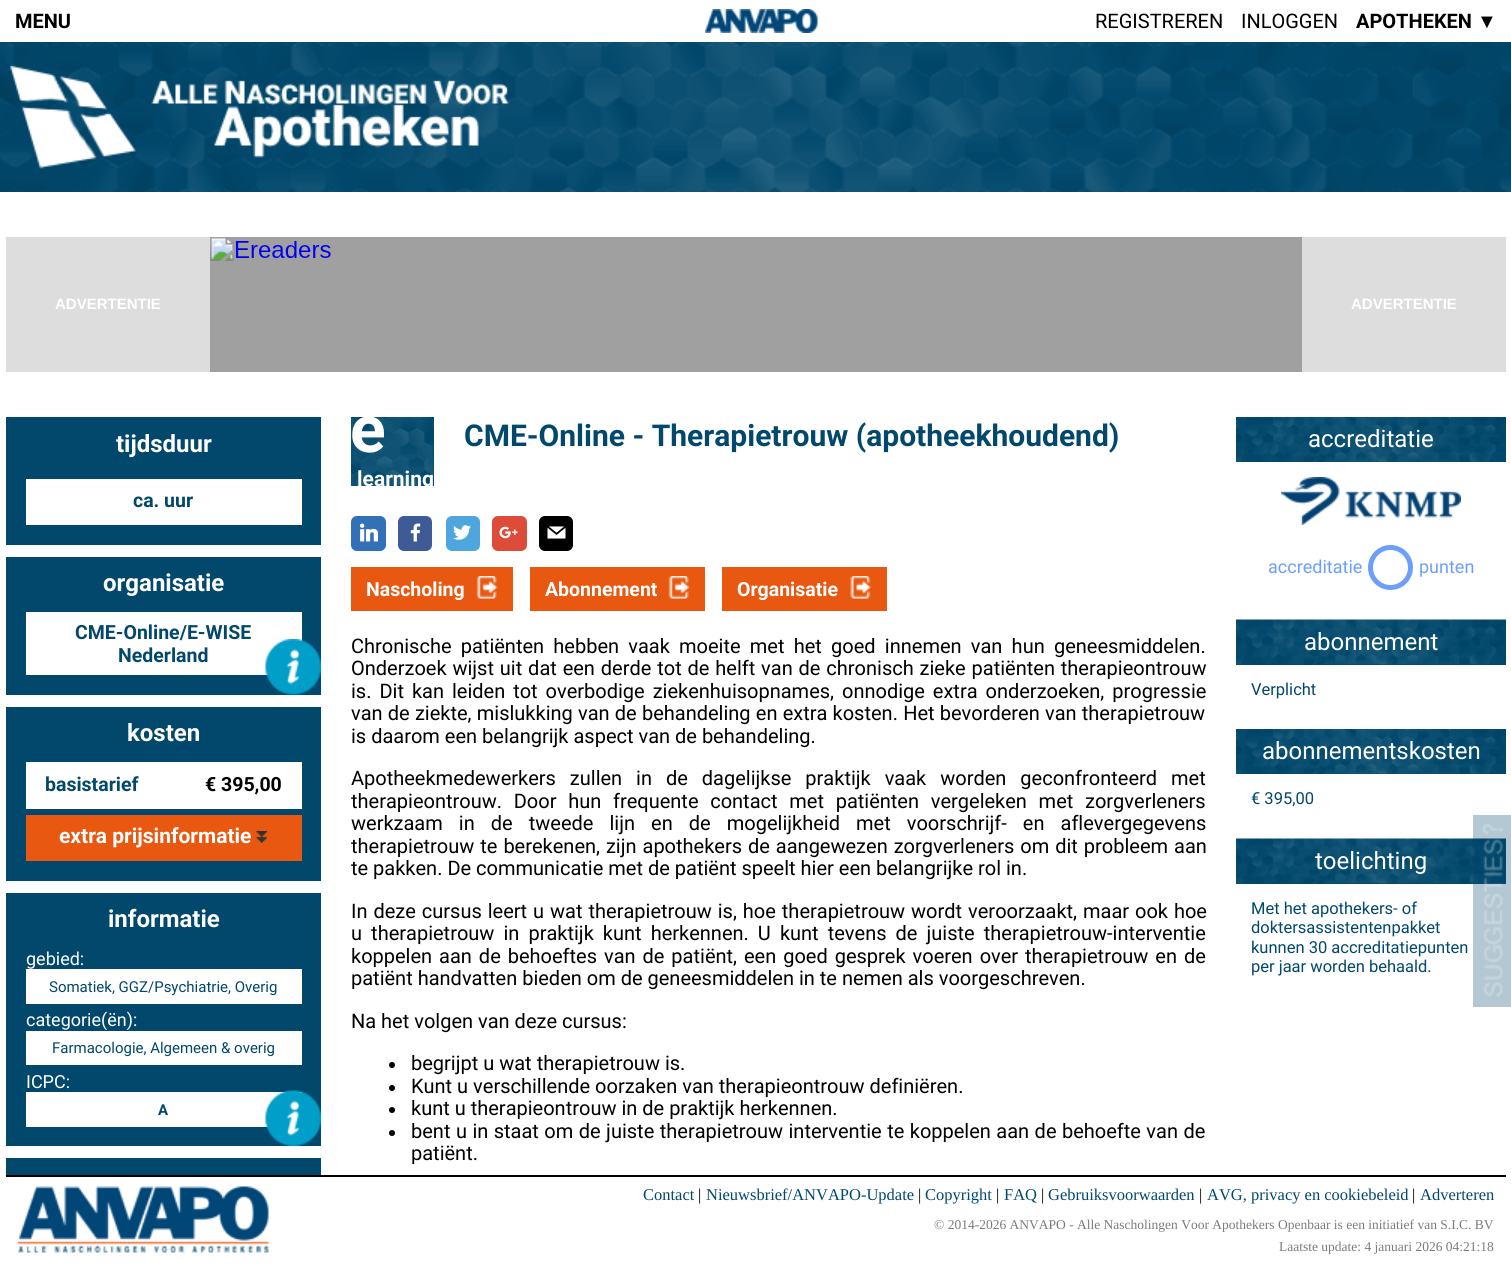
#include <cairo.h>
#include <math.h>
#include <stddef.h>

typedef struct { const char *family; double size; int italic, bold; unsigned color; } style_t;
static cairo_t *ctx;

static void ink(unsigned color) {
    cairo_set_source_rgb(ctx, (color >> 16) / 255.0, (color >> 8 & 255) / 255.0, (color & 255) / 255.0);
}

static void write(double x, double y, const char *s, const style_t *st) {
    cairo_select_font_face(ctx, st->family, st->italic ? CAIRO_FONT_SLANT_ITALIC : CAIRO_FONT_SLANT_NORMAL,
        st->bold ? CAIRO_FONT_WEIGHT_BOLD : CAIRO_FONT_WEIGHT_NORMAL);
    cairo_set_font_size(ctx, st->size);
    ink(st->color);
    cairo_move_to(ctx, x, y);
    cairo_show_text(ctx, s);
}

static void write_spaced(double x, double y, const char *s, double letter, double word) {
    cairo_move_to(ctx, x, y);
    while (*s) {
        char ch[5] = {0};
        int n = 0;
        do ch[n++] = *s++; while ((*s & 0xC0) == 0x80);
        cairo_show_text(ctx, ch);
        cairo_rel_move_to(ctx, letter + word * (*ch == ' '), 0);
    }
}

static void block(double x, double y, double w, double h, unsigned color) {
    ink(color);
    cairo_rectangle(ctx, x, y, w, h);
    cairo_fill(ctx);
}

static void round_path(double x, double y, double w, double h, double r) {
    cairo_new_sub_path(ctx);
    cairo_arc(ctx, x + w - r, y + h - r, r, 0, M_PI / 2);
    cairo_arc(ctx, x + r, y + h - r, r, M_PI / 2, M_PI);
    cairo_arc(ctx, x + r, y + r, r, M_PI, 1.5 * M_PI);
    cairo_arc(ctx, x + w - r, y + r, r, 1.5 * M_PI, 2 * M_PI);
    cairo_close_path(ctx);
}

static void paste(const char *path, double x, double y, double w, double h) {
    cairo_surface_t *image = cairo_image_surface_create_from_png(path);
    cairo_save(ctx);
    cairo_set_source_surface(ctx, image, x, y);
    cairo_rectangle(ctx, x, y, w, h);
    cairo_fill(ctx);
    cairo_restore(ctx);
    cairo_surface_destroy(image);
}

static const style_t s1 = {"Roboto", 20, 0, 1, 0x000000};
static const style_t s2 = {"Roboto", 20, 0, 0, 0x000000};
static const style_t s3 = {"Liberation Sans", 20, 0, 1, 0x000000};
static const style_t s4 = {"Liberation Sans", 15, 0, 1, 0xffffff};
static const style_t s5 = {"Roboto", 24, 0, 1, 0xffffff};
static const style_t s6 = {"Roboto", 19.5, 0, 1, 0x01486c};
static const style_t s7 = {"Roboto", 19.5, 0, 1, 0x000000};
static const style_t s8 = {"Roboto", 21, 0, 1, 0xffffff};
static const style_t s9 = {"Roboto", 18, 0, 0, 0xffffff};
static const style_t s10 = {"Roboto", 15, 0, 0, 0x01486c};
static const style_t s11 = {"Roboto", 15, 0, 1, 0x01486c};
static const style_t s12 = {"Roboto", 66, 0, 1, 0xffffff};
static const style_t s13 = {"Roboto", 30, 0, 1, 0x01486c};
static const style_t s14 = {"Roboto", 19.5, 0, 1, 0xffffff};
static const style_t s15 = {"Roboto", 24, 0, 0, 0xffffff};
static const style_t s16 = {"Roboto", 18, 0, 0, 0x6c9ffa};
static const style_t s17 = {"Roboto", 16.5, 0, 0, 0x01486c};
static const style_t s18 = {"Liberation Serif", 16.5, 0, 0, 0x01486c};
static const style_t s19 = {"Liberation Serif", 16.5, 0, 0, 0x000000};
static const style_t s20 = {"Liberation Serif", 13.5, 0, 0, 0x7c7c7c};

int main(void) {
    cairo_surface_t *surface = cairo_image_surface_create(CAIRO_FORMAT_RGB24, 1511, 1264);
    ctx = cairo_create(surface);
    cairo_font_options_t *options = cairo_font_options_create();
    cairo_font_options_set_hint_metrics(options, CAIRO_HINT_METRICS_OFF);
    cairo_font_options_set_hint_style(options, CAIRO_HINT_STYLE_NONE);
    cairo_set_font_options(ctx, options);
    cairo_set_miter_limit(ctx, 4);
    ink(0xffffff);
    cairo_paint(ctx);
    write(15, 28, "MENU", &s1);
    paste("pic1.png", 705, 9, 113, 24);
    write(1095, 28, "REGISTREREN", &s2);
    write(1241, 28, "INLOGGEN", &s2);
    write(1356, 28, "APOTHEKEN", &s1);
    write(1477, 28, "▼", &s3);
    paste("pic2.png", 0, 42, 1511, 150);
    paste("pic3.png", 10, 65, 499, 104);
    block(6, 237, 1500, 135, 0xdddddd);
    write(55, 309, "ADVERTENTIE", &s4);
    paste("pic4.png", 210, 237, 1092, 135);
    write(1351, 309, "ADVERTENTIE", &s4);
    block(6, 417, 315, 128, 0x01486c);
    write(116, 452, "tijdsduur", &s5);
    block(26, 479, 276, 46, 0xffffff);
    write(133, 507, "ca. uur", &s6);
    block(6, 557, 315, 138, 0x01486c);
    write(103, 591, "organisatie", &s5);
    block(26, 612, 276, 63, 0xffffff);
    write(75, 639, "CME-Online/E-WISE", &s6);
    write(118, 662, "Nederland", &s6);
    paste("pic5.png", 265, 639, 56, 56);
    block(6, 707, 315, 174, 0x01486c);
    write(127, 741, "kosten", &s5);
    block(26, 762, 276, 47, 0xffffff);
    write(45, 791, "basistarief", &s6);
    write(205, 791, "€ 395,00", &s7);
    block(26, 815, 276, 46, 0xe85811);
    write(59, 843, "extra prijsinformatie", &s8);
    paste("pic6.png", 256, 831, 11, 12);
    block(6, 893, 315, 253, 0x01486c);
    write(108, 927, "informatie", &s5);
    write(26, 965, "gebied:", &s9);
    block(26, 969, 276, 35, 0xffffff);
    write(49, 992, "Somatiek, GGZ/Psychiatrie, Overig", &s10);
    write(26, 1026, "categorie(ën):", &s9);
    block(26, 1031, 276, 34, 0xffffff);
    write(52, 1053, "Farmacologie, Algemeen & overig", &s10);
    write(26, 1088, "ICPC:", &s9);
    block(26, 1092, 276, 35, 0xffffff);
    write(158, 1115, "A", &s11);
    paste("pic7.png", 265, 1090, 56, 56);
    block(6, 1158, 315, 17, 0x01486c);
    block(433, 417, 1, 69, 0x01486c);
    paste("pic8.png", 351, 417, 83, 69);
    cairo_save(ctx);
    cairo_rectangle(ctx, 6, 417, 1500, 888);
    cairo_clip(ctx);
    write(350, 452, "e", &s12);
    cairo_restore(ctx);
    write(357, 486, "learning", &s8);
    write(464, 446, "CME-Online - Therapietrouw (apotheekhoudend)", &s13);
    ink(0x3371b7);
    round_path(351, 516, 35, 35, 6);
    cairo_fill(ctx);
    paste("pic9.png", 360, 523, 18, 19);
    ink(0x3e5b98);
    round_path(398, 516, 34, 35, 6);
    cairo_fill(ctx);
    paste("pic10.png", 410, 523, 11, 19);
    ink(0x4da7de);
    round_path(446, 516, 34, 35, 6);
    cairo_fill(ctx);
    paste("pic11.png", 453, 525, 18, 15);
    ink(0xdd4b39);
    round_path(492, 516, 35, 35, 6);
    cairo_fill(ctx);
    paste("pic12.png", 499, 526, 19, 13);
    ink(0x000000);
    round_path(539, 516, 34, 35, 6);
    cairo_fill(ctx);
    paste("pic13.png", 547, 526, 19, 13);
    block(351, 567, 162, 44, 0xe85811);
    write(366, 596, "Nascholing", &s14);
    paste("pic14.png", 476, 576, 22, 23);
    block(530, 567, 175, 44, 0xe85811);
    write(545, 596, "Abonnement", &s14);
    paste("pic15.png", 668, 576, 22, 23);
    block(722, 567, 165, 44, 0xe85811);
    write(737, 596, "Organisatie", &s14);
    paste("pic16.png", 850, 576, 22, 23);
    cairo_select_font_face(ctx, "Roboto", CAIRO_FONT_SLANT_NORMAL, CAIRO_FONT_WEIGHT_NORMAL);
    cairo_set_font_size(ctx, 20);
    ink(0x000000);
    write_spaced(351, 653, "Chronische patiënten hebben vaak moeite met het goed innemen van hun geneesmiddelen.", 0, 4.25);
    write_spaced(351, 675, "Onderzoek wijst uit dat een derde tot de helft van de chronisch zieke patiënten therapieontrouw", 0, 0.9);
    write_spaced(351, 698, "is. Dit kan leiden tot overbodige ziekenhuisopnames, onnodige extra onderzoeken, progressie", 0, 3);
    write_spaced(351, 720, "van de ziekte, mislukking van de behandeling en extra kosten. Het bevorderen van therapietrouw", 0, 0.25);
    write(351, 743, "is daarom een belangrijk aspect van de behandeling.", &s2);
    write_spaced(351, 785, "Apotheekmedewerkers zullen in de dagelijkse praktijk vaak worden geconfronteerd met", 0, 9);
    write_spaced(351, 808, "therapieontrouw. Door hun frequente contact met patiënten vergeleken met zorgverleners", 0, 6.75);
    write_spaced(351, 830, "werkzaam in de tweede lijn en de mogelijkheid met voorschrijf- en aflevergegevens", 0, 11.1);
    write_spaced(351, 853, "therapietrouw te berekenen, zijn apothekers de aangewezen zorgverleners om dit probleem aan", 0, 1);
    write(351, 875, "te pakken. De communicatie met de patiënt speelt hier een belangrijke rol in.", &s2);
    write_spaced(351, 918, "In deze cursus leert u wat therapietrouw is, hoe therapietrouw wordt veroorzaakt, maar ook hoe", 0, 1);
    write_spaced(351, 940, "u therapietrouw in praktijk kunt herkennen. U kunt tevens de juiste therapietrouw-interventie", 0, 4.1);
    write_spaced(351, 963, "koppelen aan de behoeftes van de patiënt, een goed gesprek voeren over therapietrouw en de", 0, 2);
    write(351, 985, "patiënt handvatten bieden om de geneesmiddelen in te nemen als voorgeschreven.", &s2);
    write(351, 1028, "Na het volgen van deze cursus:", &s2);
    cairo_new_path(ctx);
    cairo_arc(ctx, 392, 1065, 3, 0, 2 * M_PI);
    cairo_fill(ctx);
    write(411, 1070, "begrijpt u wat therapietrouw is.", &s2);
    cairo_new_path(ctx);
    cairo_arc(ctx, 392, 1088, 3, 0, 2 * M_PI);
    cairo_fill(ctx);
    write(411, 1093, "Kunt u verschillende oorzaken van therapieontrouw definiëren.", &s2);
    cairo_new_path(ctx);
    cairo_arc(ctx, 392, 1110, 3, 0, 2 * M_PI);
    cairo_fill(ctx);
    write(411, 1115, "kunt u therapieontrouw in de praktijk herkennen.", &s2);
    cairo_new_path(ctx);
    cairo_arc(ctx, 392, 1133, 3, 0, 2 * M_PI);
    cairo_fill(ctx);
    write_spaced(411, 1138, "bent u in staat om de juiste therapietrouw interventie te koppelen aan de behoefte van de", 0, 0.5);
    write(411, 1160, "patiënt.", &s2);
    paste("pic17.png", 1236, 417, 270, 45);
    write(1308, 447, "accreditatie", &s15);
    paste("pic18.png", 1281, 477, 180, 48);
    write(1268, 573, "accreditatie", &s16);
    cairo_new_path(ctx);
    cairo_arc(ctx, 1390.5, 567.5, 20, 0, 2 * M_PI);
    cairo_set_line_width(ctx, 5);
    cairo_stroke(ctx);
    write(1419, 573, "punten", &s16);
    block(1236, 664, 270, 1, 0x01486c);
    paste("pic19.png", 1236, 619, 270, 46);
    write(1304, 650, "abonnement", &s15);
    write(1251, 695, "Verplicht", &s17);
    paste("pic20.png", 1236, 729, 270, 45);
    write(1262, 759, "abonnementskosten", &s15);
    write(1251, 804, "€ 395,00", &s17);
    block(1236, 883, 270, 1, 0x01486c);
    paste("pic19.png", 1236, 838, 270, 46);
    write(1315, 869, "toelichting", &s15);
    write(1251, 914, "Met het apothekers- of", &s17);
    write(1251, 933, "doktersassistentenpakket", &s17);
    write(1251, 953, "kunnen 30 accreditatiepunten", &s17);
    write(1251, 972, "per jaar worden behaald.", &s17);
    cairo_set_source_rgba(ctx, 0.004, 0.282, 0.424, 0.3);
    cairo_rectangle(ctx, 1473, 815, 38, 192);
    cairo_fill(ctx);
    paste("pic21.png", 1482, 823, 21, 174);
    block(6, 1175, 1500, 2, 0x000000);
    paste("pic22.png", 18, 1186, 251, 67);
    write(643, 1200, "Contact", &s18);
    write(698, 1200, "|", &s19);
    write(706, 1200, "Nieuwsbrief/ANVAPO-Update", &s18);
    write(918, 1200, "|", &s19);
    write(925, 1200, "Copyright", &s18);
    write(996, 1200, "|", &s19);
    write(1004, 1200, "FAQ", &s18);
    write(1041, 1200, "|", &s19);
    write(1048, 1200, "Gebruiksvoorwaarden", &s18);
    write(1199, 1200, "|", &s19);
    write(1207, 1200, "AVG, privacy en cookiebeleid", &s18);
    write(1412, 1200, "|", &s19);
    write(1420, 1200, "Adverteren", &s18);
    write(934, 1229, "© 2014-2026 ANVAPO - Alle Nascholingen Voor Apothekers Openbaar is een initiatief van S.I.C. BV", &s20);
    write(1279, 1251, "Laatste update: 4 januari 2026 04:21:18", &s20);
    cairo_surface_write_to_png(surface, "screenshot.png");
    cairo_font_options_destroy(options);
    cairo_destroy(ctx);
    cairo_surface_destroy(surface);
    return 0;
}
